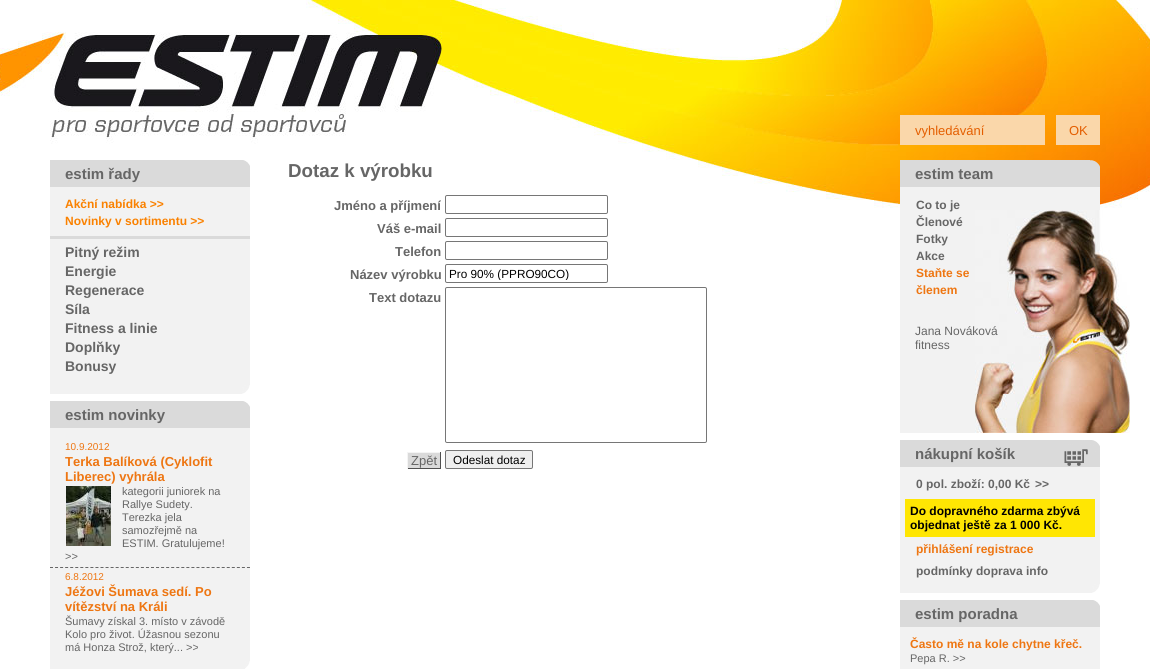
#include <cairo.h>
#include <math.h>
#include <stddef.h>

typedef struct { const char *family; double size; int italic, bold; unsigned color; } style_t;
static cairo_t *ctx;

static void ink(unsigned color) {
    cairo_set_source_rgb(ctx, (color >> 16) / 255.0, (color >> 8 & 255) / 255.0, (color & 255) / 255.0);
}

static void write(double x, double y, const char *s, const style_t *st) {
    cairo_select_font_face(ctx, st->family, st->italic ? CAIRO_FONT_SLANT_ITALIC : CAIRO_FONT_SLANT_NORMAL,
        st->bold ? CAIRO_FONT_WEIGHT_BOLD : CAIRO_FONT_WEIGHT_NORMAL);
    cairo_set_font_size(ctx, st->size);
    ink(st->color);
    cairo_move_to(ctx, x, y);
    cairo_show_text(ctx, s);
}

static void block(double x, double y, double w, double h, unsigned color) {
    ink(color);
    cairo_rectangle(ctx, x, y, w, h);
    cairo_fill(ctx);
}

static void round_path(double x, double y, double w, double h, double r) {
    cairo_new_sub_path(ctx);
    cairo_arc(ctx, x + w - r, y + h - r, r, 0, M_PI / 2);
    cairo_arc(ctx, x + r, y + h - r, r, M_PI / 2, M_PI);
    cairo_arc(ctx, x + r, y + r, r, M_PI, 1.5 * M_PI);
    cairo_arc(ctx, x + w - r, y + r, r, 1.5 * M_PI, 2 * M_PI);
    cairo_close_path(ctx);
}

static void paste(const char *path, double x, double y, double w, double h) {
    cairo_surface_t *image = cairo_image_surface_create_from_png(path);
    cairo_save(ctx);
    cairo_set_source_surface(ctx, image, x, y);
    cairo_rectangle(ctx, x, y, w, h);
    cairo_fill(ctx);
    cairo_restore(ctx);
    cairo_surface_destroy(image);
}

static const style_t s1 = {"Liberation Sans", 13, 0, 0, 0xe45e00};
static const style_t s2 = {"Liberation Sans", 15, 0, 1, 0x666666};
static const style_t s3 = {"Liberation Sans", 12, 0, 1, 0xfa8100};
static const style_t s4 = {"Liberation Sans", 14, 0, 1, 0x666666};
static const style_t s5 = {"Liberation Sans", 10, 0, 0, 0xee7612};
static const style_t s6 = {"Liberation Sans", 13, 0, 1, 0xee7612};
static const style_t s7 = {"Liberation Sans", 11, 0, 0, 0x666666};
static const style_t s8 = {"Liberation Sans", 18.75, 0, 1, 0x666666};
static const style_t s9 = {"Liberation Sans", 13, 0, 1, 0x666666};
static const style_t s10 = {"Liberation Sans", 11.75, 0, 0, 0x000000};
static const style_t s11 = {"Liberation Sans", 13, 0, 0, 0x666666};
static const style_t s12 = {"Liberation Sans", 12, 0, 1, 0x666666};
static const style_t s13 = {"Liberation Sans", 12, 0, 1, 0xee7612};
static const style_t s14 = {"Liberation Sans", 12, 0, 0, 0x666666};
static const style_t s15 = {"Liberation Sans", 12, 0, 1, 0x000000};

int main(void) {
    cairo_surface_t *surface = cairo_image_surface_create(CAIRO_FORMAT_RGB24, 1150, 669);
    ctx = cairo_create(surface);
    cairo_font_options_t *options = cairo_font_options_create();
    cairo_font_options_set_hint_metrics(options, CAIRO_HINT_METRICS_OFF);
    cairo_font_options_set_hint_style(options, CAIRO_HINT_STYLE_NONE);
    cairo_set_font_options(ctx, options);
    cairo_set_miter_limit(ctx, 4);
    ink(0xffffff);
    cairo_paint(ctx);
    paste("pic1.png", 0, 0, 1150, 213);
    block(900, 115, 145, 30, 0xfad7aa);
    write(915, 135, "vyhledávání", &s1);
    block(1056, 115, 44, 30, 0xfad7aa);
    write(1069, 135, "OK", &s1);
    block(50, 187, 200, 207, 0xf2f2f2);
    paste("pic2.png", 242, 385, 8, 9);
    block(50, 160, 200, 27, 0xdadada);
    paste("pic3.png", 243, 160, 7, 6);
    write(65, 179, "estim řady", &s2);
    block(50, 236, 200, 3, 0xdadada);
    write(65, 208, "Akční nabídka >>", &s3);
    write(65, 225, "Novinky v sortimentu >>", &s3);
    write(65, 257, "Pitný režim", &s4);
    write(65, 276, "Energie", &s4);
    write(65, 295, "Regenerace", &s4);
    write(65, 314, "Síla", &s4);
    write(65, 333, "Fitness a linie", &s4);
    write(65, 352, "Doplňky", &s4);
    write(65, 371, "Bonusy", &s4);
    block(50, 428, 200, 241, 0xf2f2f2);
    paste("pic4.png", 245, 661, 5, 8);
    block(50, 401, 200, 27, 0xdadada);
    paste("pic3.png", 243, 401, 7, 6);
    write(65, 420, "estim novinky", &s2);
    write(65, 450, "10.9.2012", &s5);
    write(65, 466, "Terka Balíková (Cyklofit", &s6);
    write(65, 481, "Liberec) vyhrála", &s6);
    paste("pic5.png", 66, 486, 45, 60);
    write(122, 495, "kategorii juniorek na", &s7);
    write(122, 508, "Rallye Sudety.", &s7);
    write(122, 521, "Terezka jela", &s7);
    write(122, 534, "samozřejmě na", &s7);
    write(122, 547, "ESTIM. Gratulujeme!", &s7);
    write(65, 560, ">>", &s7);
    cairo_new_path(ctx);
    cairo_move_to(ctx, 50, 567.5);
    cairo_line_to(ctx, 250, 567.5);
    cairo_set_line_width(ctx, 1);
    cairo_set_dash(ctx, (double[]){3, 2.05}, 2, 0);
    cairo_stroke(ctx);
    write(65, 580, "6.8.2012", &s5);
    write(65, 596, "Jéžovi Šumava sedí. Po", &s6);
    write(65, 611, "vítězství na Králi", &s6);
    write(65, 625, "Šumavy získal 3. místo v závodě", &s7);
    write(65, 638, "Kolo pro život. Úžasnou sezonu", &s7);
    write(65, 651, "má Honza Strož, který... >>", &s7);
    write(288, 177, "Dotaz k výrobku", &s8);
    write(334, 210, "Jméno a příjmení", &s9);
    round_path(445.5, 195.5, 162, 18, 1.5);
    ink(0x767676);
    cairo_set_dash(ctx, NULL, 0, 0);
    cairo_stroke(ctx);
    write(377, 233, "Váš e-mail", &s9);
    round_path(445.5, 218.5, 162, 18, 1.5);
    ink(0x767676);
    cairo_stroke(ctx);
    write(395, 256, "Telefon", &s9);
    round_path(445.5, 241.5, 162, 18, 1.5);
    ink(0x767676);
    cairo_stroke(ctx);
    write(350, 279, "Název výrobku", &s9);
    round_path(445.5, 264.5, 162, 18, 1.5);
    ink(0x767676);
    cairo_stroke(ctx);
    cairo_save(ctx);
    cairo_rectangle(ctx, 449, 267, 155, 13);
    cairo_clip(ctx);
    write(449, 278, "Pro 90% (PPRO90CO)", &s10);
    cairo_restore(ctx);
    write(369, 302, "Text dotazu", &s9);
    round_path(445.5, 287.5, 261, 155, 1.5);
    ink(0x767676);
    cairo_stroke(ctx);
    block(408, 453, 32, 15, 0xdadada);
    write(411, 465, "Zpět", &s11);
    block(407, 452, 34, 1, 0xf4f4f4);
    block(440, 452, 1, 17, 0x4f4f4f);
    block(407, 468, 34, 1, 0x4f4f4f);
    block(407, 452, 1, 17, 0xf4f4f4);
    ink(0xefefef);
    round_path(445.5, 450.5, 87, 18, 1.5);
    cairo_fill_preserve(ctx);
    ink(0x767676);
    cairo_stroke(ctx);
    write(453, 464, "Odeslat dotaz", &s10);
    block(900, 187, 200, 246, 0xf2f2f2);
    paste("pic6.png", 975, 210, 155, 223);
    block(900, 160, 200, 27, 0xdadada);
    paste("pic7.png", 1090, 160, 10, 7);
    write(915, 179, "estim team", &s2);
    write(916, 209, "Co to je", &s12);
    write(916, 226, "Členové", &s12);
    write(916, 243, "Fotky", &s12);
    write(916, 260, "Akce", &s12);
    write(916, 277, "Staňte se", &s13);
    write(916, 294, "členem", &s13);
    write(915, 335, "Jana Nováková", &s14);
    write(915, 349, "fitness", &s14);
    block(900, 467, 200, 126, 0xf2f2f2);
    paste("pic2.png", 1092, 584, 8, 9);
    block(900, 440, 200, 27, 0xdadada);
    paste("pic8.png", 1064, 440, 36, 26);
    write(915, 459, "nákupní košík", &s2);
    write(916, 488, "0 pol. zboží: 0,00 Kč", &s12);
    write(1035, 488, ">>", &s12);
    block(905, 499, 190, 38, 0xffe603);
    write(910, 515, "Do dopravného zdarma zbývá", &s15);
    write(910, 529, "objednat ještě za 1 000 Kč.", &s15);
    write(916, 553, "přihlášení registrace", &s13);
    write(916, 575, "podmínky doprava info", &s12);
    block(900, 627, 200, 42, 0xf2f2f2);
    block(900, 600, 200, 27, 0xdadada);
    paste("pic3.png", 1093, 600, 7, 6);
    write(915, 619, "estim poradna", &s2);
    write(910, 648, "Často mě na kole chytne křeč.", &s13);
    write(910, 662, "Pepa R. >>", &s7);
    cairo_surface_write_to_png(surface, "screenshot.png");
    cairo_font_options_destroy(options);
    cairo_destroy(ctx);
    cairo_surface_destroy(surface);
    return 0;
}
